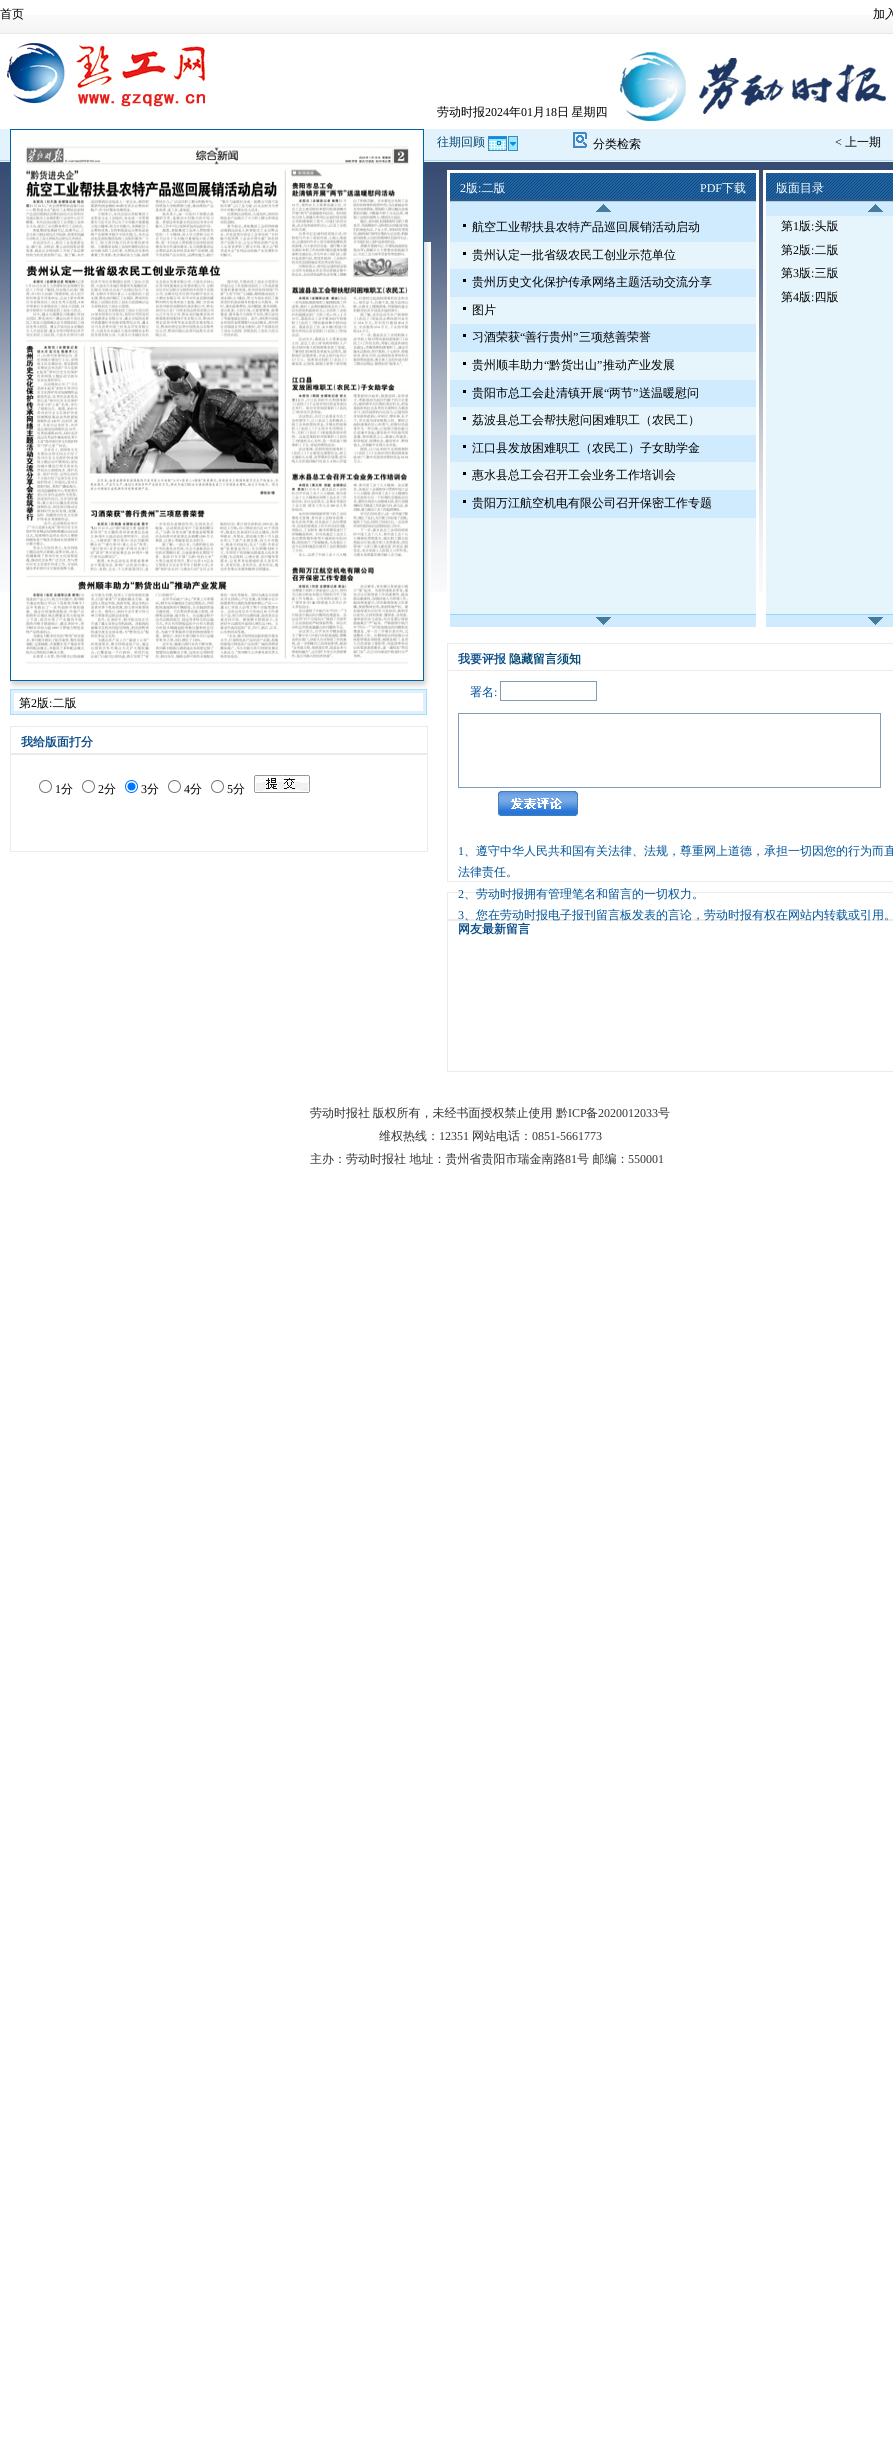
#include <cairo.h>
#include <math.h>
#include <stddef.h>

typedef struct { const char *family; double size; int italic, bold; unsigned color; } style_t;
static cairo_t *ctx;

static void ink(unsigned color) {
    cairo_set_source_rgb(ctx, (color >> 16) / 255.0, (color >> 8 & 255) / 255.0, (color & 255) / 255.0);
}

static void write(double x, double y, const char *s, const style_t *st) {
    cairo_select_font_face(ctx, st->family, st->italic ? CAIRO_FONT_SLANT_ITALIC : CAIRO_FONT_SLANT_NORMAL,
        st->bold ? CAIRO_FONT_WEIGHT_BOLD : CAIRO_FONT_WEIGHT_NORMAL);
    cairo_set_font_size(ctx, st->size);
    ink(st->color);
    cairo_move_to(ctx, x, y);
    cairo_show_text(ctx, s);
}

static void write_spaced(double x, double y, const char *s, double letter, double word) {
    cairo_move_to(ctx, x, y);
    while (*s) {
        char ch[5] = {0};
        int n = 0;
        do ch[n++] = *s++; while ((*s & 0xC0) == 0x80);
        cairo_show_text(ctx, ch);
        cairo_rel_move_to(ctx, letter + word * (*ch == ' '), 0);
    }
}

static void block(double x, double y, double w, double h, unsigned color) {
    ink(color);
    cairo_rectangle(ctx, x, y, w, h);
    cairo_fill(ctx);
}

static void paste(const char *path, double x, double y, double w, double h) {
    cairo_surface_t *image = cairo_image_surface_create_from_png(path);
    cairo_save(ctx);
    cairo_set_source_surface(ctx, image, x, y);
    cairo_rectangle(ctx, x, y, w, h);
    cairo_fill(ctx);
    cairo_restore(ctx);
    cairo_surface_destroy(image);
}

static const style_t s1 = {"WenQuanYi Zen Hei Medium", 12, 0, 0, 0x000000};
static const style_t s2 = {"Liberation Serif", 12, 0, 0, 0x000000};
static const style_t s3 = {"WenQuanYi Zen Hei", 12, 0, 1, 0x0a4c89};
static const style_t s4 = {"WenQuanYi Zen Hei Medium", 12, 0, 0, 0x004773};
static const style_t s5 = {"Liberation Serif", 12, 0, 0, 0xffffff};
static const style_t s6 = {"WenQuanYi Zen Hei Medium", 12, 0, 0, 0xffffff};
static const style_t s7 = {"WenQuanYi Zen Hei", 12, 0, 1, 0x004773};
static const style_t s8 = {"WenQuanYi Zen Hei Medium", 12, 0, 0, 0x00549a};
static const style_t s9 = {"Liberation Serif", 12, 0, 0, 0x00549a};
static const style_t s10 = {"WenQuanYi Zen Hei Medium", 12, 0, 0, 0x333333};
static const style_t s11 = {"Liberation Serif", 12, 0, 0, 0x333333};

int main(void) {
    cairo_surface_t *surface = cairo_image_surface_create(CAIRO_FORMAT_RGB24, 893, 2454);
    ctx = cairo_create(surface);
    cairo_font_options_t *options = cairo_font_options_create();
    cairo_font_options_set_hint_metrics(options, CAIRO_HINT_METRICS_OFF);
    cairo_font_options_set_hint_style(options, CAIRO_HINT_STYLE_NONE);
    cairo_set_font_options(ctx, options);
    cairo_set_miter_limit(ctx, 4);
    ink(0xffffff);
    cairo_paint(ctx);
    paste("pic1.png", 0, 15, 893, 577);
    write(0, 18, "首页", &s1);
    write(873, 18, "加入", &s1);
    paste("pic2.png", 7, 43, 199, 64);
    paste("pic3.png", 10, 242, 421, 447);
    paste("pic14.png", 0, 129, 893, 33);
    block(11, 130, 412, 112, 0xffffff);
    cairo_rectangle(ctx, 10.5, 129.5, 413, 551);
    ink(0x0065a7);
    cairo_set_line_width(ctx, 1);
    cairo_stroke(ctx);
    paste("pic4.png", 25, 145, 384, 519);
    cairo_rectangle(ctx, 10.5, 689.5, 416, 25);
    ink(0xaadbf9);
    cairo_stroke(ctx);
    cairo_rectangle(ctx, 12.5, 691.5, 412, 21);
    ink(0xdef0fe);
    cairo_set_line_width(ctx, 3);
    cairo_stroke(ctx);
    write(19, 707, "第", &s1);
    write(31, 707, "2", &s2);
    write(37, 707, "版 二版", &s1);
    write(49, 707, ":", &s2);
    cairo_rectangle(ctx, 10.5, 726.5, 417, 27);
    ink(0xebebeb);
    cairo_set_line_width(ctx, 1);
    cairo_stroke(ctx);
    write(21, 746, "我给版面打分", &s3);
    cairo_rectangle(ctx, 10.5, 754.5, 417, 97);
    ink(0xebebeb);
    cairo_stroke(ctx);
    cairo_arc(ctx, 45.5, 786.5, 6, 0, 2 * M_PI);
    ink(0x767676);
    cairo_stroke(ctx);
    write(55, 793, "1", &s2);
    write(61, 793, "分", &s1);
    cairo_new_path(ctx);
    cairo_arc(ctx, 88.5, 786.5, 6, 0, 2 * M_PI);
    ink(0x767676);
    cairo_stroke(ctx);
    write(98, 793, "2", &s2);
    write(104, 793, "分", &s1);
    cairo_new_path(ctx);
    cairo_arc(ctx, 131.5, 786.5, 6, 0, 2 * M_PI);
    ink(0x0075ff);
    cairo_stroke(ctx);
    cairo_arc(ctx, 131.5, 786.5, 4, 0, 2 * M_PI);
    cairo_fill(ctx);
    write(141, 793, "3", &s2);
    write(147, 793, "分", &s1);
    cairo_new_path(ctx);
    cairo_arc(ctx, 174.5, 786.5, 6, 0, 2 * M_PI);
    ink(0x767676);
    cairo_stroke(ctx);
    write(184, 793, "4", &s2);
    write(190, 793, "分", &s1);
    cairo_new_path(ctx);
    cairo_arc(ctx, 217.5, 786.5, 6, 0, 2 * M_PI);
    ink(0x767676);
    cairo_stroke(ctx);
    write(227, 793, "5", &s2);
    write(233, 793, "分", &s1);
    paste("pic5.png", 254, 775, 56, 18);
    write(437, 116, "劳动时报", &s1);
    write(485, 116, "2024", &s2);
    write(509, 116, "年", &s1);
    write(521, 116, "01", &s2);
    write(533, 116, "月", &s1);
    write(545, 116, "18", &s2);
    cairo_select_font_face(ctx, "WenQuanYi Zen Hei Medium", CAIRO_FONT_SLANT_NORMAL, CAIRO_FONT_WEIGHT_NORMAL);
    write_spaced(557, 116, "日 星期四", 0, -1);
    paste("pic6.png", 619, 51, 268, 71);
    write(437, 146, "往期回顾", &s4);
    paste("pic7.png", 488, 136, 30, 15);
    paste("pic8.png", 573, 132, 14, 16);
    write(593, 148, "分类检索", &s1);
    write(835, 146, "<", &s2);
    write(845, 146, "上一期", &s1);
    cairo_rectangle(ctx, 448.5, 171.5, 309, 457);
    ink(0xffffff);
    cairo_set_line_width(ctx, 3);
    cairo_stroke(ctx);
    paste("pic9.png", 450, 173, 306, 26);
    write(460, 192, "2", &s5);
    write(466, 192, "版 二版", &s6);
    write(700, 192, "PDF", &s5);
    write(722, 192, "下载", &s6);
    write(478, 192, ":", &s5);
    block(450, 202, 306, 40, 0xd0ebfe);
    block(450, 201, 306, 1, 0x94d5ff);
    paste("pic10.png", 596, 204, 15, 8);
    block(450, 242, 306, 372, 0xe6f5fc);
    block(463, 224, 3, 3, 0x000000);
    write(472, 231, "航空工业帮扶县农特产品巡回展销活动启动", &s1);
    block(463, 252, 3, 3, 0x000000);
    write(472, 259, "贵州认定一批省级农民工创业示范单位", &s1);
    block(450, 269, 306, 28, 0xd0ebfe);
    block(463, 279, 3, 3, 0x000000);
    write(472, 286, "贵州历史文化保护传承网络主题活动交流分享", &s1);
    block(463, 307, 3, 3, 0x000000);
    write(472, 314, "图片", &s1);
    block(450, 324, 306, 28, 0xd0ebfe);
    block(463, 334, 3, 3, 0x000000);
    write(472, 341, "习酒荣获", &s1);
    write(520, 341, "“", &s2);
    write(525, 341, "善行贵州", &s1);
    write(573, 341, "”", &s2);
    write(579, 341, "三项慈善荣誉", &s1);
    block(463, 362, 3, 3, 0x000000);
    write(472, 369, "贵州顺丰助力", &s1);
    write(544, 369, "“", &s2);
    write(549, 369, "黔货出山", &s1);
    write(597, 369, "”", &s2);
    write(603, 369, "推动产业发展", &s1);
    block(450, 380, 306, 27, 0xd0ebfe);
    block(463, 390, 3, 3, 0x000000);
    write(472, 397, "贵阳市总工会赴清镇开展", &s1);
    write(604, 397, "“", &s2);
    write(609, 397, "两节", &s1);
    write(633, 397, "”", &s2);
    write(639, 397, "送温暖慰问", &s1);
    block(463, 417, 3, 3, 0x000000);
    write(472, 424, "荔波县总工会帮扶慰问困难职工（农民工）", &s1);
    block(450, 435, 306, 27, 0xd0ebfe);
    block(463, 445, 3, 3, 0x000000);
    write(472, 452, "江口县发放困难职工（农民工）子女助学金", &s1);
    block(463, 472, 3, 3, 0x000000);
    write(472, 479, "惠水县总工会召开工会业务工作培训会", &s1);
    block(450, 490, 306, 28, 0xd0ebfe);
    block(463, 500, 3, 3, 0x000000);
    write(472, 507, "贵阳万江航空机电有限公司召开保密工作专题", &s1);
    block(450, 615, 306, 12, 0xd0ebfe);
    block(450, 614, 306, 1, 0x94d5ff);
    paste("pic11.png", 596, 617, 15, 8);
    cairo_rectangle(ctx, 764.5, 171.5, 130, 457);
    ink(0xffffff);
    cairo_stroke(ctx);
    paste("pic12.png", 766, 173, 127, 26);
    write(776, 192, "版面目录", &s6);
    block(766, 202, 127, 14, 0xd0ebfe);
    block(766, 201, 127, 1, 0x94d5ff);
    paste("pic10.png", 868, 204, 15, 8);
    block(766, 216, 127, 398, 0xe6f5fc);
    write(781, 230, "第", &s1);
    write(793, 230, "1", &s2);
    write(799, 230, "版 头版", &s1);
    write(811, 230, ":", &s2);
    write(781, 254, "第", &s1);
    write(793, 254, "2", &s2);
    write(799, 254, "版 二版", &s1);
    write(811, 254, ":", &s2);
    write(781, 277, "第", &s1);
    write(793, 277, "3", &s2);
    write(799, 277, "版 三版", &s1);
    write(811, 277, ":", &s2);
    write(781, 301, "第", &s1);
    write(793, 301, "4", &s2);
    write(799, 301, "版 四版", &s1);
    write(811, 301, ":", &s2);
    block(766, 615, 127, 12, 0xd0ebfe);
    block(766, 614, 127, 1, 0x94d5ff);
    paste("pic11.png", 868, 617, 15, 8);
    cairo_rectangle(ctx, 447.5, 643.5, 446, 27);
    ink(0xebebeb);
    cairo_set_line_width(ctx, 1);
    cairo_stroke(ctx);
    write(458, 663, "我要评报", &s3);
    write(509, 663, "隐藏留言须知", &s7);
    block(447, 881, 446, 1, 0xebebeb);
    block(447, 671, 1, 211, 0xebebeb);
    write(470, 696, "署名", &s8);
    write(494, 696, ":", &s9);
    cairo_rectangle(ctx, 500.5, 681.5, 96, 19);
    ink(0x7f9db9);
    cairo_stroke(ctx);
    cairo_rectangle(ctx, 458.5, 713.5, 422, 74);
    cairo_stroke(ctx);
    paste("pic13.png", 498, 791, 80, 25);
    write(458, 855, "1", &s9);
    write(464, 855, "、遵守中华人民共和国有关法律、法规，尊重网上道德，承担一切因您的行为而直", &s8);
    write(458, 876, "法律责任。", &s8);
    cairo_rectangle(ctx, 447.5, 892.5, 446, 27);
    ink(0xebebeb);
    cairo_stroke(ctx);
    write(458, 898, "2", &s9);
    write(464, 898, "、劳动时报拥有管理笔名和留言的一切权力。", &s8);
    write(458, 919, "3", &s9);
    cairo_rectangle(ctx, 447.5, 920.5, 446, 151);
    ink(0xebebeb);
    cairo_stroke(ctx);
    write(464, 919, "、您在劳动时报电子报刊留言板发表的言论，劳动时报有权在网站内转载或引用。", &s8);
    write(458, 933, "网友最新留言", &s3);
    cairo_select_font_face(ctx, "WenQuanYi Zen Hei Medium", CAIRO_FONT_SLANT_NORMAL, CAIRO_FONT_WEIGHT_NORMAL);
    ink(0x333333);
    write_spaced(310, 1117, "劳动时报社 版权所有，未经书面授权禁止使用", 0, -1);
    write(556, 1117, "黔", &s10);
    write(568, 1117, "ICP", &s11);
    write(586, 1117, "备", &s10);
    write(598, 1117, "2020012033", &s11);
    write(658, 1117, "号", &s10);
    write(379, 1140, "维权热线：", &s10);
    write(439, 1140, "12351", &s11);
    write(472, 1140, "网站电话：", &s10);
    write(532, 1140, "0851-5661773", &s11);
    write(310, 1163, "主办：劳动时报社 地址：贵州省贵阳市瑞金南路", &s10);
    write(565, 1163, "81", &s11);
    write(577, 1163, "号 邮编：", &s10);
    write(628, 1163, "550001", &s11);
    cairo_surface_write_to_png(surface, "screenshot.png");
    cairo_font_options_destroy(options);
    cairo_destroy(ctx);
    cairo_surface_destroy(surface);
    return 0;
}
